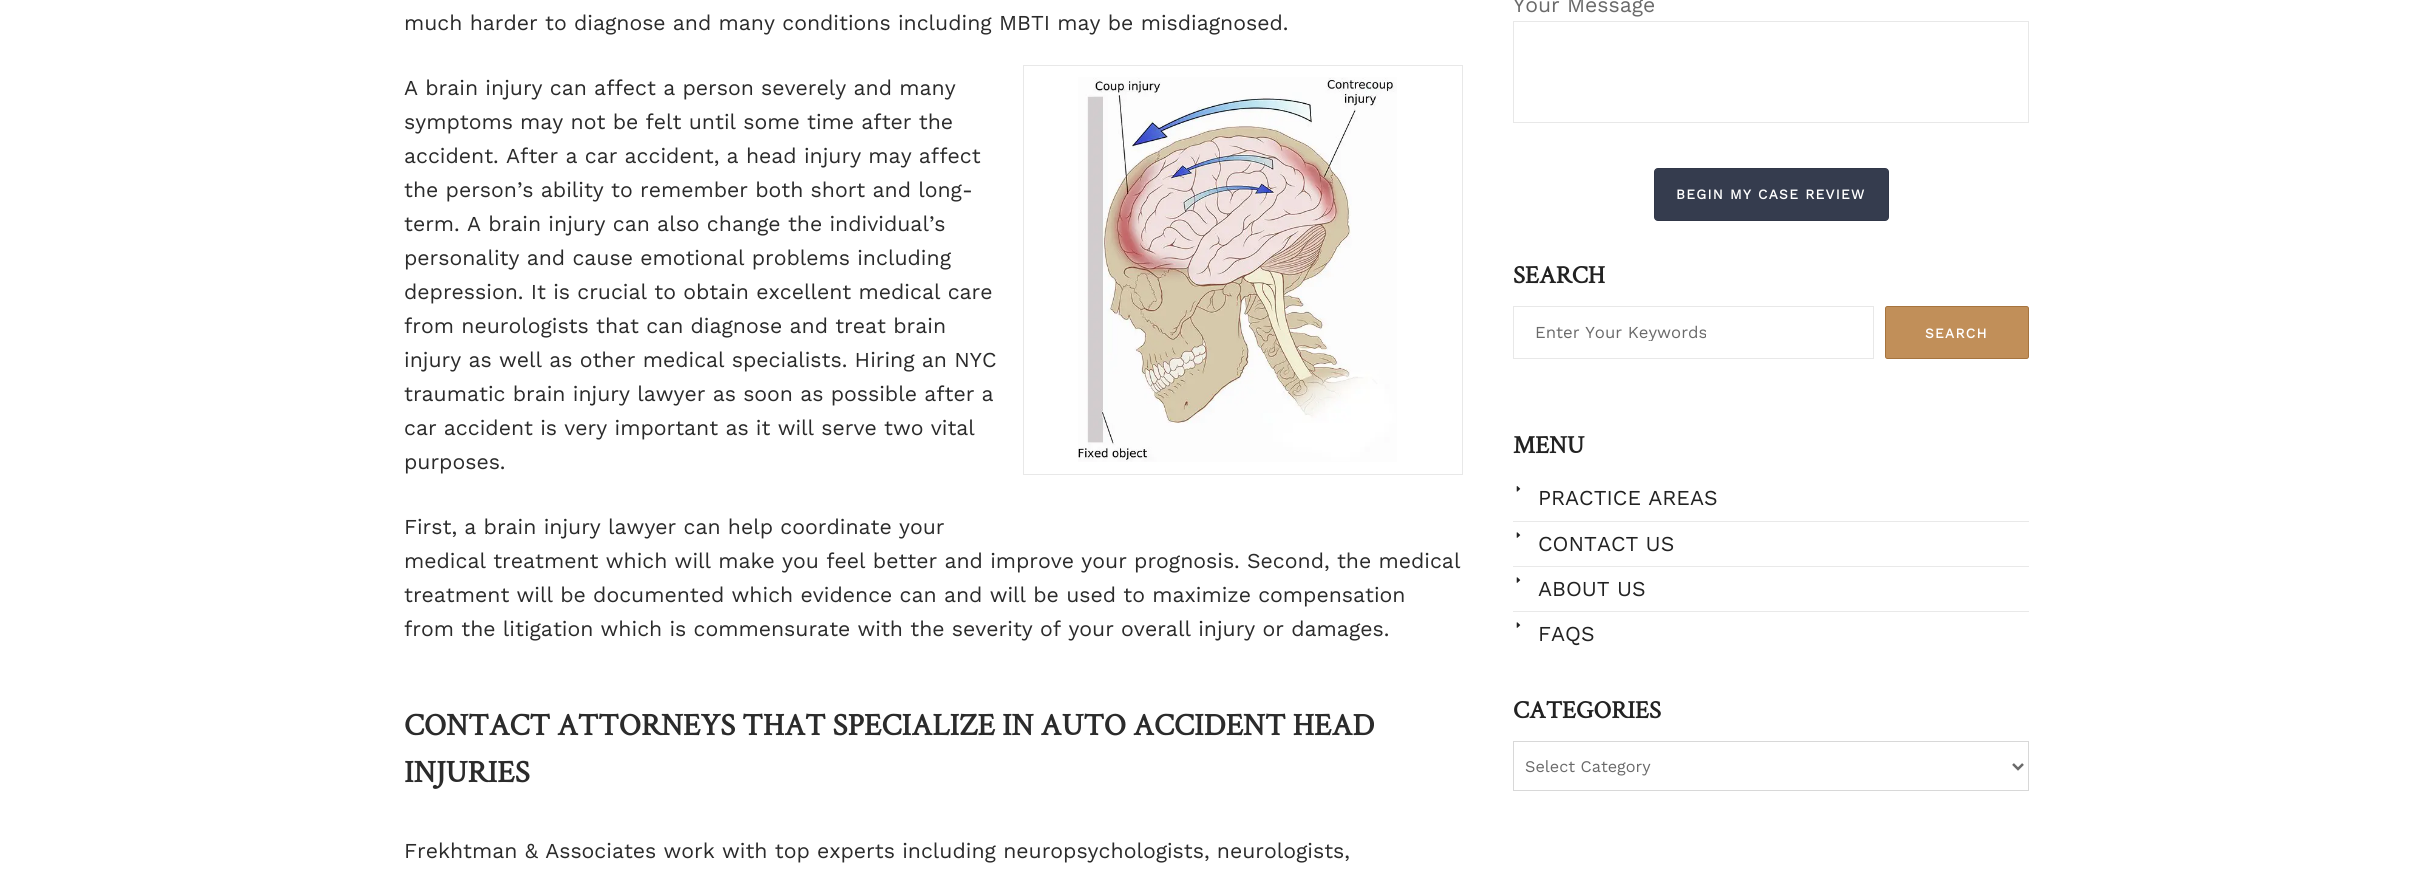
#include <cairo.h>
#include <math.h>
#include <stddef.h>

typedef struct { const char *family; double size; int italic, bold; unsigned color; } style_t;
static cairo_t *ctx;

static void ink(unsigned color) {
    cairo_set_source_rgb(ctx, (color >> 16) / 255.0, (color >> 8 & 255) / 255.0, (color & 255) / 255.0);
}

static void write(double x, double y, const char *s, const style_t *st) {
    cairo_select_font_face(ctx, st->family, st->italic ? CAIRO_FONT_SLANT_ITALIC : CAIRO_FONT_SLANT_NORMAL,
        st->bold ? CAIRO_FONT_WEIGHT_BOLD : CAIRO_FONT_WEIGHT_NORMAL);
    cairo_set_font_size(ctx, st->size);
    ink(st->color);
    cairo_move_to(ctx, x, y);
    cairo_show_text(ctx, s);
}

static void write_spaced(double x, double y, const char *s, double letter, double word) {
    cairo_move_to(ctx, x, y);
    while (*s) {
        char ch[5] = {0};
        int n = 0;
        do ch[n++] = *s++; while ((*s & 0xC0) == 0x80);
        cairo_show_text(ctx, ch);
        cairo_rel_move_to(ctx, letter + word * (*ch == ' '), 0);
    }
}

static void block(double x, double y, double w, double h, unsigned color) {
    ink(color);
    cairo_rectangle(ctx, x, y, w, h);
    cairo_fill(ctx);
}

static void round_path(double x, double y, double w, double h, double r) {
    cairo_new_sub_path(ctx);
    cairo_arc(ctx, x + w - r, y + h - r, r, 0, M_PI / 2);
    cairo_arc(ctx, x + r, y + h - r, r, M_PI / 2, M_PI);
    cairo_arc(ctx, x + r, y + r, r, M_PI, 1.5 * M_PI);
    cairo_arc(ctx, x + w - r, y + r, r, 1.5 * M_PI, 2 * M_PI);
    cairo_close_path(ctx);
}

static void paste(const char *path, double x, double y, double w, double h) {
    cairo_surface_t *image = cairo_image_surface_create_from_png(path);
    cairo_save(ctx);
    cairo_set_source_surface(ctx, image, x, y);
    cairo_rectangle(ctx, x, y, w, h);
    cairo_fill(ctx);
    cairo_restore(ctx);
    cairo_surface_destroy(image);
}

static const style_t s1 = {"Work Sans", 21.25, 0, 0, 0x2b2b2b};
static const style_t s2 = {"Crimson Text", 31.25, 0, 1, 0x2b2b2b};
static const style_t s3 = {"Work Sans", 21.25, 0, 0, 0x6a6a6a};
static const style_t s4 = {"Crimson Text", 25, 0, 1, 0x222222};
static const style_t s5 = {"Work Sans", 16.75, 0, 0, 0x6a6a6a};
static const style_t s6 = {"Work Sans", 21.25, 0, 0, 0x222222};
static const style_t s7 = {"Work Sans", 16.25, 0, 0, 0x6a6a6a};

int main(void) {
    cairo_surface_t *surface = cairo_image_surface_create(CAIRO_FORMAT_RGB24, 2433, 885);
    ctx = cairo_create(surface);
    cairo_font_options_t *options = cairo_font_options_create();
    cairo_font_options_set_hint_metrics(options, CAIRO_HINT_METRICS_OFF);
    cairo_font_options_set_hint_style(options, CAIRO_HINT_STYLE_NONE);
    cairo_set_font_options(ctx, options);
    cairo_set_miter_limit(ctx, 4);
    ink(0xffffff);
    cairo_paint(ctx);
    write(404, 30, "much harder to diagnose and many conditions including MBTI may be misdiagnosed.", &s1);
    cairo_rectangle(ctx, 1023.5, 65.5, 439, 409);
    ink(0xe8e8e8);
    cairo_set_line_width(ctx, 1);
    cairo_stroke(ctx);
    paste("pic1.png", 1078, 77, 319, 385);
    write(404, 95, "A brain injury can affect a person severely and many", &s1);
    write(404, 129, "symptoms may not be felt until some time after the", &s1);
    write(404, 163, "accident. After a car accident, a head injury may affect", &s1);
    write(404, 197, "the person’s ability to remember both short and long-", &s1);
    write(404, 231, "term. A brain injury can also change the individual’s", &s1);
    write(404, 265, "personality and cause emotional problems including", &s1);
    write(404, 299, "depression. It is crucial to obtain excellent medical care", &s1);
    write(404, 333, "from neurologists that can diagnose and treat brain", &s1);
    write(404, 367, "injury as well as other medical specialists. Hiring an NYC", &s1);
    write(404, 401, "traumatic brain injury lawyer as soon as possible after a", &s1);
    write(404, 435, "car accident is very important as it will serve two vital", &s1);
    write(404, 469, "purposes.", &s1);
    write(404, 534, "First, a brain injury lawyer can help coordinate your", &s1);
    write(404, 568, "medical treatment which will make you feel better and improve your prognosis. Second, the medical", &s1);
    write(404, 602, "treatment will be documented which evidence can and will be used to maximize compensation", &s1);
    write(404, 636, "from the litigation which is commensurate with the severity of your overall injury or damages.", &s1);
    write(404, 735, "CONTACT ATTORNEYS THAT SPECIALIZE IN AUTO ACCIDENT HEAD", &s2);
    write(404, 782, "INJURIES", &s2);
    write(404, 858, "Frekhtman & Associates work with top experts including neuropsychologists, neurologists,", &s1);
    write(1513, 12, "Your Message", &s3);
    cairo_rectangle(ctx, 1513.5, 21.5, 515, 101);
    ink(0xe8e8e8);
    cairo_stroke(ctx);
    ink(0x353c4e);
    round_path(1654.5, 168.5, 234, 52, 3.5);
    cairo_fill_preserve(ctx);
    ink(0x313748);
    cairo_stroke(ctx);
    cairo_select_font_face(ctx, "Work Sans", CAIRO_FONT_SLANT_NORMAL, CAIRO_FONT_WEIGHT_BOLD);
    cairo_set_font_size(ctx, 13.75);
    ink(0xffffff);
    write_spaced(1676, 199, "BEGIN MY CASE REVIEW", 1.25, 0);
    write(1513, 283, "SEARCH", &s4);
    cairo_rectangle(ctx, 1513.5, 306.5, 360, 52);
    ink(0xe8e8e8);
    cairo_stroke(ctx);
    cairo_save(ctx);
    cairo_rectangle(ctx, 1535, 323, 316, 18);
    cairo_clip(ctx);
    write(1535, 338, "Enter Your Keywords", &s5);
    cairo_restore(ctx);
    ink(0xc18f59);
    round_path(1885.5, 306.5, 143, 52, 2);
    cairo_fill_preserve(ctx);
    ink(0xa6743e);
    cairo_stroke(ctx);
    cairo_select_font_face(ctx, "Work Sans", CAIRO_FONT_SLANT_NORMAL, CAIRO_FONT_WEIGHT_BOLD);
    cairo_set_font_size(ctx, 13.75);
    ink(0xffffff);
    write_spaced(1925, 338, "SEARCH", 1.25, 0);
    write(1513, 453, "MENU", &s4);
    block(1513, 521, 516, 1, 0xe9e9e9);
    paste("pic2.png", 1516, 486, 5, 6);
    write(1538, 505, "PRACTICE AREAS", &s6);
    block(1513, 566, 516, 1, 0xe9e9e9);
    paste("pic3.png", 1516, 532, 5, 6);
    write(1538, 551, "CONTACT US", &s6);
    block(1513, 611, 516, 1, 0xe9e9e9);
    paste("pic3.png", 1516, 577, 5, 6);
    write(1538, 596, "ABOUT US", &s6);
    paste("pic3.png", 1516, 622, 5, 6);
    write(1538, 641, "FAQS", &s6);
    write(1513, 718, "CATEGORIES", &s4);
    cairo_rectangle(ctx, 1513.5, 741.5, 515, 49);
    ink(0xd8d8d8);
    cairo_stroke(ctx);
    cairo_new_path(ctx);
    cairo_move_to(ctx, 2013, 764);
    cairo_line_to(ctx, 2018, 769);
    cairo_line_to(ctx, 2023, 764);
    ink(0x6a6a6a);
    cairo_set_line_width(ctx, 2.5);
    cairo_stroke(ctx);
    write(1525, 772, "Select Category", &s7);
    cairo_surface_write_to_png(surface, "screenshot.png");
    cairo_font_options_destroy(options);
    cairo_destroy(ctx);
    cairo_surface_destroy(surface);
    return 0;
}
